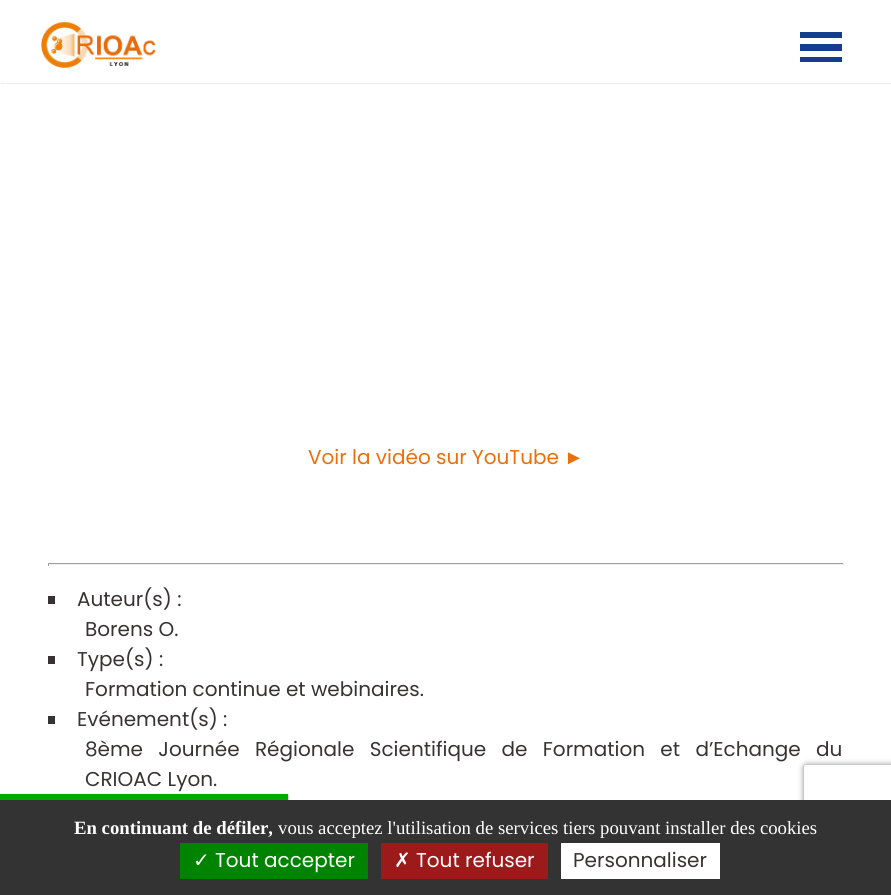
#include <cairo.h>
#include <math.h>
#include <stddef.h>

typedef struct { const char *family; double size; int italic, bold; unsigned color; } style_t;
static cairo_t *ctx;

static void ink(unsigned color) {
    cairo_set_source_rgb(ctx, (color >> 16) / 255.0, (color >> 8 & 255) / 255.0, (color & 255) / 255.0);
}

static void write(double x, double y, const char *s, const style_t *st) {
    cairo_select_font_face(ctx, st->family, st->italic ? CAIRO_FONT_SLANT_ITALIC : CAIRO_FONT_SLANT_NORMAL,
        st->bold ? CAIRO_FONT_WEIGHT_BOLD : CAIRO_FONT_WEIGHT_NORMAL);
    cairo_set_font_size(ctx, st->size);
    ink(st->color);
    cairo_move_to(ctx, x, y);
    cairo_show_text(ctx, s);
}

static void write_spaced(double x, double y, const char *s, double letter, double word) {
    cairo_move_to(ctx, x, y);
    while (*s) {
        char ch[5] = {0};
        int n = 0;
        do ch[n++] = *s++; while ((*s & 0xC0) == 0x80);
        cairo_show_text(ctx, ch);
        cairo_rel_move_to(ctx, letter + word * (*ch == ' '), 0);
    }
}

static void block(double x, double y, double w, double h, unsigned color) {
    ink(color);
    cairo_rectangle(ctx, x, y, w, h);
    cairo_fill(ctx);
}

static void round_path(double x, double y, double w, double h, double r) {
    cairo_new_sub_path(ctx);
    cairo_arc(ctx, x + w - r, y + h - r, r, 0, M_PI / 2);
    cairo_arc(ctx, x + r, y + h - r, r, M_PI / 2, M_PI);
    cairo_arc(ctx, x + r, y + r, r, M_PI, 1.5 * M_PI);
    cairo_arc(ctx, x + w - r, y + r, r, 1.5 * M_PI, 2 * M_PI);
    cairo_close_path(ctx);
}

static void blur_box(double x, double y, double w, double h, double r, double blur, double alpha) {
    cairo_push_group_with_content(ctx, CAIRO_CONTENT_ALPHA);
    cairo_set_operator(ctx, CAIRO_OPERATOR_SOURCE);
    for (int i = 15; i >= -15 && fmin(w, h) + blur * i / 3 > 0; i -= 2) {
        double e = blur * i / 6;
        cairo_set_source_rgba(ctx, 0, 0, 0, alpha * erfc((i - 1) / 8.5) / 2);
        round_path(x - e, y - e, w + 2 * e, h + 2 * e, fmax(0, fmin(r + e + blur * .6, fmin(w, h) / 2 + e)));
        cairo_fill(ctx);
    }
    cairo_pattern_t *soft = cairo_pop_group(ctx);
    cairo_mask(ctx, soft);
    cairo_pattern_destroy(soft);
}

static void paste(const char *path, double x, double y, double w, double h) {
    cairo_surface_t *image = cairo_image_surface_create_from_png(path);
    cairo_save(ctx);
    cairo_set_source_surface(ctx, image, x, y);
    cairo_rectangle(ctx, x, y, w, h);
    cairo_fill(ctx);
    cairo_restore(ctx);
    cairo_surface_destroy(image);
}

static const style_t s1 = {"Poppins", 20, 0, 0, 0xe96f0c};
static const style_t s2 = {"Liberation Sans", 20, 0, 0, 0xe96f0c};
static const style_t s3 = {"Poppins", 20, 0, 0, 0x383232};
static const style_t s4 = {"Liberation Serif", 18.75, 0, 1, 0xffffff};
static const style_t s5 = {"Liberation Serif", 18.75, 0, 0, 0xffffff};
static const style_t s6 = {"DejaVu Sans", 20, 0, 0, 0xffffff};
static const style_t s7 = {"Poppins", 20, 0, 0, 0xffffff};

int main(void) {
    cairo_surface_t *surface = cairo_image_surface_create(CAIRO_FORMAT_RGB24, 891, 895);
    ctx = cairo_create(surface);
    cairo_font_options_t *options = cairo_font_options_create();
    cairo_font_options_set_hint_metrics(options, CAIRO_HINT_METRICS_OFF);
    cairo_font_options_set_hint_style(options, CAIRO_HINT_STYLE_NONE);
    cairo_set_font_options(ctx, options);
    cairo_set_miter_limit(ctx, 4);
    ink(0xffffff);
    cairo_paint(ctx);
    ink(0xeaedf2);
    cairo_new_path(ctx);
    cairo_move_to(ctx, 1, 82);
    cairo_line_to(ctx, 1, 84);
    cairo_line_to(ctx, 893, 84);
    cairo_line_to(ctx, 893, 1);
    cairo_line_to(ctx, 891, 1);
    cairo_line_to(ctx, 891, 82);
    cairo_close_path(ctx);
    cairo_fill(ctx);
    block(1, 82, 890, 1, 0xffffff);
    paste("pic1.png", 41, 22, 115, 46);
    ink(0x143c8f);
    cairo_new_path(ctx);
    cairo_move_to(ctx, 800, 62);
    cairo_line_to(ctx, 842, 62);
    cairo_line_to(ctx, 842, 57);
    cairo_line_to(ctx, 800, 57);
    cairo_close_path(ctx);
    cairo_move_to(ctx, 800, 32);
    cairo_line_to(ctx, 800, 38);
    cairo_line_to(ctx, 842, 38);
    cairo_line_to(ctx, 842, 32);
    cairo_close_path(ctx);
    cairo_move_to(ctx, 800, 51);
    cairo_line_to(ctx, 842, 51);
    cairo_line_to(ctx, 842, 44);
    cairo_line_to(ctx, 800, 44);
    cairo_close_path(ctx);
    cairo_fill(ctx);
    write(308, 464, "Voir la vidéo sur YouTube", &s1);
    write(564, 464, "►", &s2);
    block(48, 563, 796, 1, 0x9f9f9f);
    block(843, 563, 1, 3, 0xeeeeee);
    block(48, 564, 796, 1, 0xeeeeee);
    block(48, 563, 1, 3, 0x9f9f9f);
    block(48, 596, 7, 8, 0x383232);
    write(77, 606, "Auteur(s) :", &s3);
    write(85, 636, "Borens O.", &s3);
    block(48, 656, 7, 8, 0x383232);
    write(77, 666, "Type(s) :", &s3);
    write(85, 696, "Formation continue et webinaires.", &s3);
    block(48, 716, 7, 8, 0x383232);
    write(77, 726, "Evénement(s) :", &s3);
    write_spaced(85, 756, "8ème Journée Régionale Scientifique de Formation et d’Echange du", 0, 10);
    write(85, 786, "CRIOAC Lyon.", &s3);
    ink(0x555555);
    blur_box(0, 795, 288, 6, 0, 1, 1);
    ink(0xffffff);
    blur_box(0, 794, 288, 6, 0, 1, 1);
    block(0, 794, 288, 6, 0x00aa00);
    cairo_save(ctx);
    cairo_set_fill_rule(ctx, CAIRO_FILL_RULE_EVEN_ODD);
    cairo_new_path(ctx);
    cairo_move_to(ctx, 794, 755);
    cairo_line_to(ctx, 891, 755);
    cairo_line_to(ctx, 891, 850);
    cairo_line_to(ctx, 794, 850);
    cairo_close_path(ctx);
    cairo_move_to(ctx, 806.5, 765);
    cairo_line_to(ctx, 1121.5, 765);
    cairo_curve_to(ctx, 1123, 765, 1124, 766, 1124, 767.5);
    cairo_line_to(ctx, 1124, 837.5);
    cairo_curve_to(ctx, 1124, 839, 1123, 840, 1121.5, 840);
    cairo_line_to(ctx, 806.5, 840);
    cairo_curve_to(ctx, 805, 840, 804, 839, 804, 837.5);
    cairo_line_to(ctx, 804, 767.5);
    cairo_curve_to(ctx, 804, 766, 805, 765, 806.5, 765);
    cairo_close_path(ctx);
    cairo_clip(ctx);
    ink(0x808080);
    blur_box(804, 765, 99, 75, 2.5, 3, 1);
    cairo_restore(ctx);
    block(0, 800, 891, 95, 0x333333);
    write(74, 834, "En continuant de défiler,", &s4);
    write(278, 834, "vous acceptez l'utilisation de services tiers pouvant installer des cookies", &s5);
    block(180, 843, 188, 36, 0x008300);
    write(193, 867, "✓", &s6);
    write(215, 867, "Tout accepter", &s7);
    block(381, 843, 167, 36, 0x9c1a1a);
    write(394, 867, "✗", &s6);
    write(416, 867, "Tout refuser", &s7);
    block(561, 843, 159, 36, 0xffffff);
    write(573, 867, "Personnaliser", &s3);
    cairo_surface_write_to_png(surface, "screenshot.png");
    cairo_font_options_destroy(options);
    cairo_destroy(ctx);
    cairo_surface_destroy(surface);
    return 0;
}
